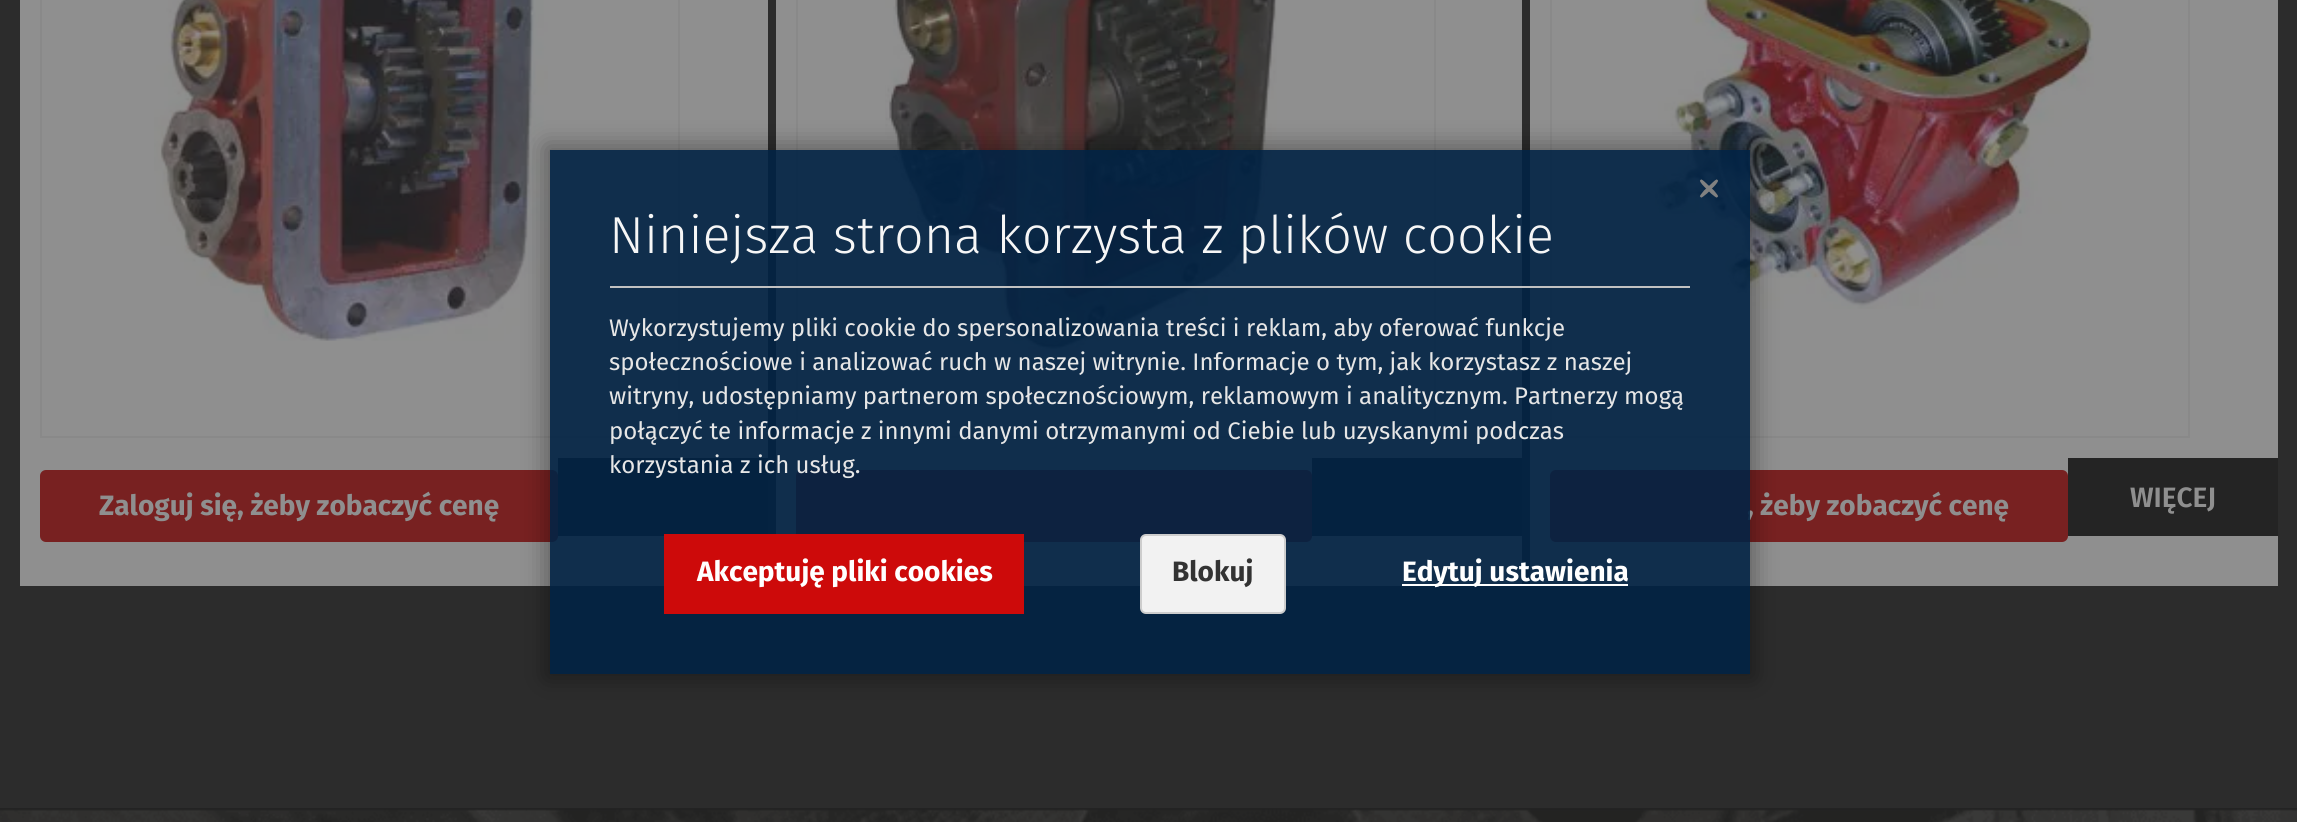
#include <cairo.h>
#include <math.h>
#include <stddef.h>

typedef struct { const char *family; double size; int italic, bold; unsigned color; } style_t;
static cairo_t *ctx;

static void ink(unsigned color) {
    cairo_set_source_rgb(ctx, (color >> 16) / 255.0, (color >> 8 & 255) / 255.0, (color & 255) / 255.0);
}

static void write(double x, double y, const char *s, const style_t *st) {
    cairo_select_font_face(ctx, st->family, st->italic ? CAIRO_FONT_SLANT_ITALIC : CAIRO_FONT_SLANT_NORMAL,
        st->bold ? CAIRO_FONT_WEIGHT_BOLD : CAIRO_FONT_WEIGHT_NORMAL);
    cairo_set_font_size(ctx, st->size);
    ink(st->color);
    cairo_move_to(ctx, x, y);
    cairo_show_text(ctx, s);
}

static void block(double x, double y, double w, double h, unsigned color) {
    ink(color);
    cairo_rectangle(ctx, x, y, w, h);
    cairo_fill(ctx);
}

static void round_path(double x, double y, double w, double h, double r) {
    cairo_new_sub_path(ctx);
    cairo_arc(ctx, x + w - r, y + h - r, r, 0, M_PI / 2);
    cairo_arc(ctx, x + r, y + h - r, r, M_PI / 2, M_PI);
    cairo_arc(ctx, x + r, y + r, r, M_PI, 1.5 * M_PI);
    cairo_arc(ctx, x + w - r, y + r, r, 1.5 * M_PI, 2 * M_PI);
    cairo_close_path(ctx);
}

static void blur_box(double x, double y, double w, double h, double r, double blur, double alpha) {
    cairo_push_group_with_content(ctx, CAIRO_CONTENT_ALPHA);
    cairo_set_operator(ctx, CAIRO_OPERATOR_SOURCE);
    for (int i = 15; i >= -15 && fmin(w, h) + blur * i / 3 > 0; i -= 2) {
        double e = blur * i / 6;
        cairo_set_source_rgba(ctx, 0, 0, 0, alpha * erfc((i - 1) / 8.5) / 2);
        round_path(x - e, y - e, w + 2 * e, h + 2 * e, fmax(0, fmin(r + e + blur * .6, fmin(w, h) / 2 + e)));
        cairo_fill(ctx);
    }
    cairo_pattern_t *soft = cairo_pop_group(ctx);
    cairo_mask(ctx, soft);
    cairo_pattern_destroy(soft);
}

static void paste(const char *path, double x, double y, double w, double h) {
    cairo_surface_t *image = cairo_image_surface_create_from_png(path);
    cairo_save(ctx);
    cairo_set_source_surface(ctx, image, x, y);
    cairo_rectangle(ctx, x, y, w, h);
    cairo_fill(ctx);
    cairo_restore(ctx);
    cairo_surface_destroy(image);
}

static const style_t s1 = {"Fira Sans", 28, 0, 1, 0x8f8f8f};
static const style_t s2 = {"Fira Sans Light", 52, 0, 0, 0xf6f6f6};
static const style_t s3 = {"Fira Sans", 24, 0, 0, 0xe6e6e6};
static const style_t s4 = {"Fira Sans", 28, 0, 1, 0xffffff};
static const style_t s5 = {"Fira Sans", 28, 0, 1, 0x333333};
static const style_t s6 = {"Fira Sans SemiBold", 28, 0, 0, 0x8f8f8f};

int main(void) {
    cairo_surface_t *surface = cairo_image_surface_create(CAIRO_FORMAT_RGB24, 2297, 822);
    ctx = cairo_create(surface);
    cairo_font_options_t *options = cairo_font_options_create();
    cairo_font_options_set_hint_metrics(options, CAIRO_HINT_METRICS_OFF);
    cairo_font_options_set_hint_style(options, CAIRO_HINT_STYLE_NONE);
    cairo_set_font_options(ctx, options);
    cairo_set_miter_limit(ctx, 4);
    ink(0x2c2c2c);
    cairo_paint(ctx);
    block(20, 0, 748, 586, 0x8f8f8f);
    cairo_rectangle(ctx, 41, -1, 638, 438);
    ink(0x898989);
    cairo_stroke(ctx);
    paste("pic1.png", 154, 0, 394, 341);
    ink(0x782121);
    round_path(41, 471, 516, 70, 5);
    cairo_fill_preserve(ctx);
    cairo_stroke(ctx);
    block(558, 458, 210, 78, 0x242424);
    block(776, 0, 746, 586, 0x8f8f8f);
    cairo_rectangle(ctx, 797, -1, 638, 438);
    ink(0x898989);
    cairo_stroke(ctx);
    paste("pic2.png", 885, 0, 392, 356);
    ink(0x782121);
    round_path(797, 471, 514, 70, 5);
    cairo_fill_preserve(ctx);
    cairo_stroke(ctx);
    block(1312, 458, 210, 78, 0x242424);
    block(1530, 0, 748, 586, 0x8f8f8f);
    cairo_rectangle(ctx, 1551, -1, 638, 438);
    ink(0x898989);
    cairo_stroke(ctx);
    paste("pic3.png", 1655, 0, 439, 309);
    ink(0x782121);
    round_path(1551, 471, 516, 70, 5);
    cairo_fill_preserve(ctx);
    cairo_stroke(ctx);
    cairo_save(ctx);
    cairo_set_fill_rule(ctx, CAIRO_FILL_RULE_EVEN_ODD);
    cairo_new_path(ctx);
    cairo_move_to(ctx, 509, 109);
    cairo_line_to(ctx, 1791, 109);
    cairo_line_to(ctx, 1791, 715);
    cairo_line_to(ctx, 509, 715);
    cairo_close_path(ctx);
    cairo_move_to(ctx, 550, 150);
    cairo_line_to(ctx, 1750, 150);
    cairo_line_to(ctx, 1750, 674);
    cairo_line_to(ctx, 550, 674);
    cairo_close_path(ctx);
    cairo_clip(ctx);
    ink(0x000000);
    blur_box(546, 146, 1208, 532, 0, 12, 0.35);
    cairo_restore(ctx);
    write(1747, 515, ", żeby zobaczyć cenę", &s1);
    cairo_set_source_rgba(ctx, 0, 0.133, 0.267, 0.89);
    cairo_rectangle(ctx, 550, 150, 1200, 524);
    cairo_fill(ctx);
    ink(0x818181);
    cairo_new_path(ctx);
    cairo_move_to(ctx, 1707, 184);
    cairo_line_to(ctx, 1714, 190.5);
    cairo_curve_to(ctx, 1716.5, 193.5, 1718.5, 196, 1718, 196.5);
    cairo_line_to(ctx, 1717, 197.5);
    cairo_curve_to(ctx, 1716.5, 198, 1714, 196, 1711, 193.5);
    cairo_line_to(ctx, 1704, 186.5);
    cairo_curve_to(ctx, 1701.5, 184, 1699.5, 181, 1700, 180.5);
    cairo_line_to(ctx, 1701, 179.5);
    cairo_curve_to(ctx, 1701.5, 179, 1704, 181, 1707, 184);
    cairo_close_path(ctx);
    cairo_fill(ctx);
    cairo_new_path(ctx);
    cairo_move_to(ctx, 1704, 190.5);
    cairo_line_to(ctx, 1711, 184);
    cairo_curve_to(ctx, 1714, 181, 1716.5, 179, 1717, 179.5);
    cairo_line_to(ctx, 1718, 180.5);
    cairo_curve_to(ctx, 1718.5, 181, 1716.5, 184, 1714, 186.5);
    cairo_line_to(ctx, 1707, 193.5);
    cairo_curve_to(ctx, 1704, 196, 1701.5, 198, 1701, 197.5);
    cairo_line_to(ctx, 1700, 196.5);
    cairo_curve_to(ctx, 1699.5, 196, 1701.5, 193.5, 1704, 190.5);
    cairo_close_path(ctx);
    cairo_fill(ctx);
    block(610, 286, 1080, 2, 0xc1c1c1);
    write(609, 253, "Niniejsza strona korzysta z plików cookie", &s2);
    write(609, 336, "Wykorzystujemy pliki cookie do spersonalizowania treści i reklam, aby oferować funkcje", &s3);
    write(609, 370, "społecznościowe i analizować ruch w naszej witrynie. Informacje o tym, jak korzystasz z naszej", &s3);
    write(609, 404, "witryny, udostępniamy partnerom społecznościowym, reklamowym i analitycznym. Partnerzy mogą", &s3);
    write(609, 439, "połączyć te informacje z innymi danymi otrzymanymi od Ciebie lub uzyskanymi podczas", &s3);
    write(609, 473, "korzystania z ich usług.", &s3);
    ink(0xcd0a0a);
    cairo_rectangle(ctx, 665, 535, 358, 78);
    cairo_fill_preserve(ctx);
    cairo_stroke(ctx);
    write(697, 581, "Akceptuję pliki cookies", &s4);
    ink(0xf2f2f2);
    round_path(1141, 535, 144, 78, 5);
    cairo_fill_preserve(ctx);
    ink(0xcdcdcd);
    cairo_stroke(ctx);
    write(1172, 581, "Blokuj", &s5);
    block(1402, 584, 226, 2, 0xffffff);
    write(1402, 581, "Edytuj ustawienia", &s4);
    write(99, 515, "Zaloguj się, żeby zobaczyć cenę", &s1);
    block(2068, 458, 210, 78, 0x242424);
    write(2130, 507, "WIĘCEJ", &s6);
    block(0, 808, 2297, 14, 0x232323);
    paste("pic4.png", 0, 809, 2297, 13);
    cairo_surface_write_to_png(surface, "screenshot.png");
    cairo_font_options_destroy(options);
    cairo_destroy(ctx);
    cairo_surface_destroy(surface);
    return 0;
}
